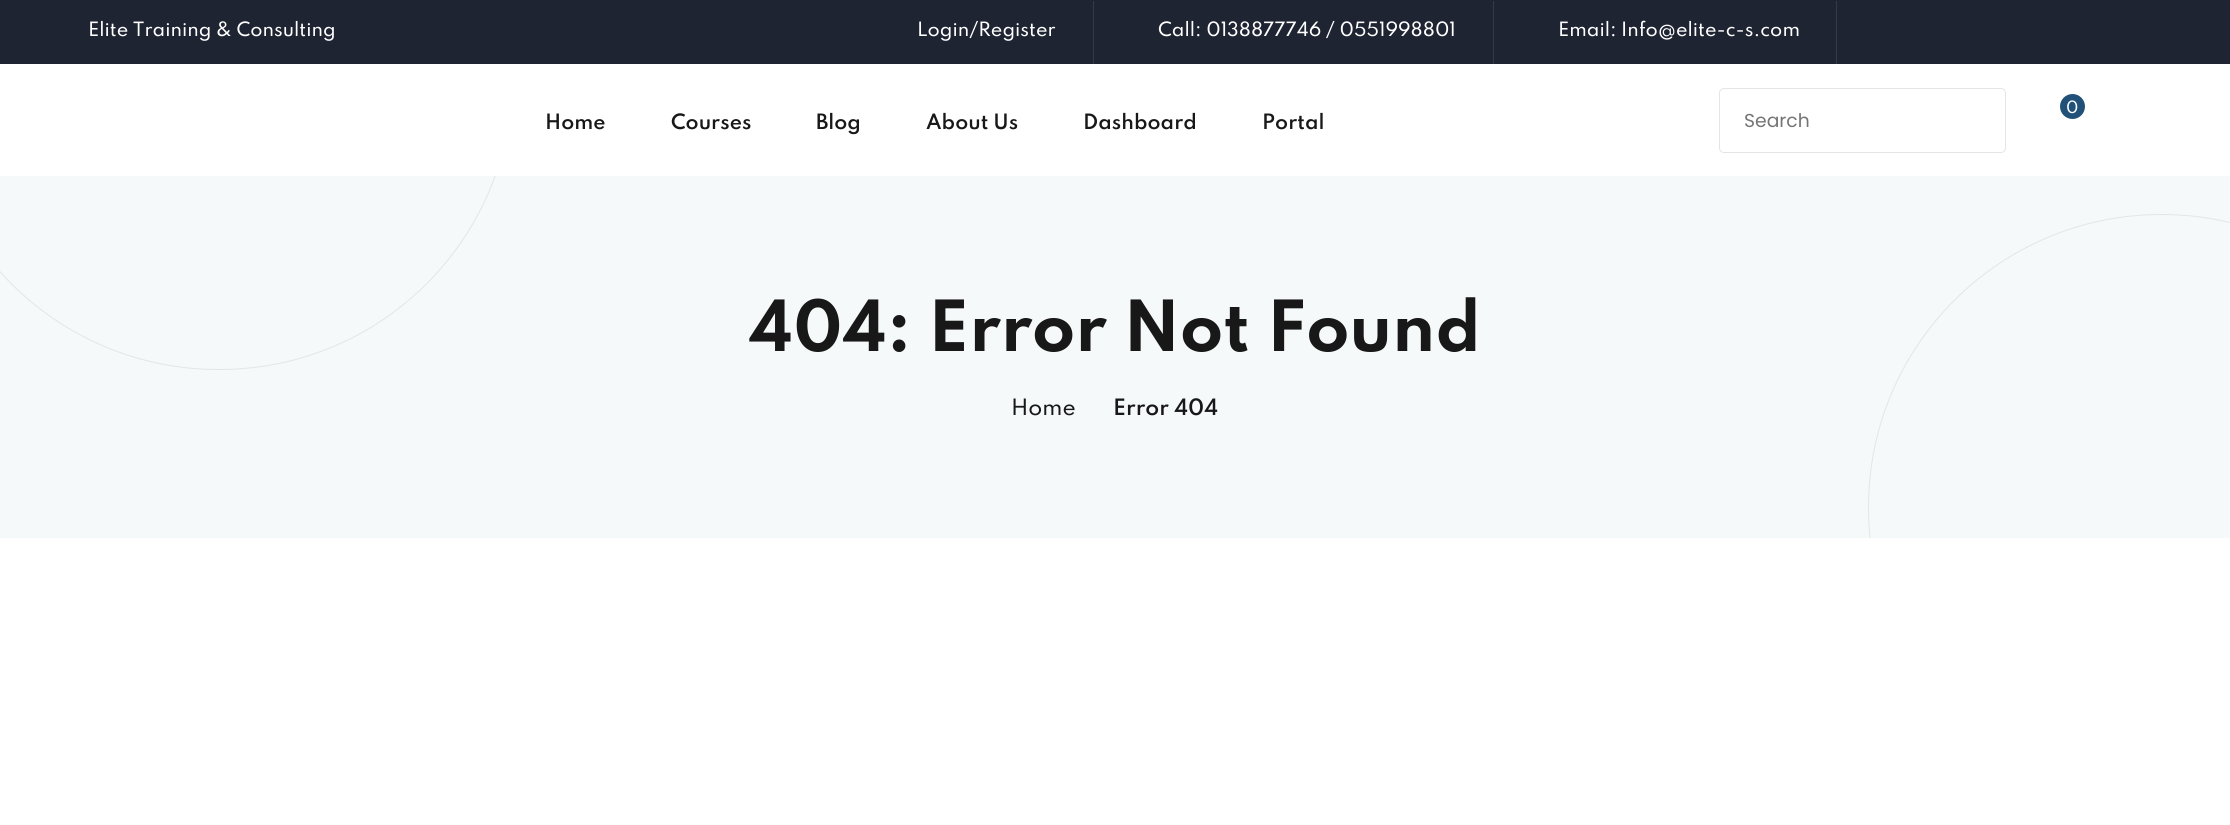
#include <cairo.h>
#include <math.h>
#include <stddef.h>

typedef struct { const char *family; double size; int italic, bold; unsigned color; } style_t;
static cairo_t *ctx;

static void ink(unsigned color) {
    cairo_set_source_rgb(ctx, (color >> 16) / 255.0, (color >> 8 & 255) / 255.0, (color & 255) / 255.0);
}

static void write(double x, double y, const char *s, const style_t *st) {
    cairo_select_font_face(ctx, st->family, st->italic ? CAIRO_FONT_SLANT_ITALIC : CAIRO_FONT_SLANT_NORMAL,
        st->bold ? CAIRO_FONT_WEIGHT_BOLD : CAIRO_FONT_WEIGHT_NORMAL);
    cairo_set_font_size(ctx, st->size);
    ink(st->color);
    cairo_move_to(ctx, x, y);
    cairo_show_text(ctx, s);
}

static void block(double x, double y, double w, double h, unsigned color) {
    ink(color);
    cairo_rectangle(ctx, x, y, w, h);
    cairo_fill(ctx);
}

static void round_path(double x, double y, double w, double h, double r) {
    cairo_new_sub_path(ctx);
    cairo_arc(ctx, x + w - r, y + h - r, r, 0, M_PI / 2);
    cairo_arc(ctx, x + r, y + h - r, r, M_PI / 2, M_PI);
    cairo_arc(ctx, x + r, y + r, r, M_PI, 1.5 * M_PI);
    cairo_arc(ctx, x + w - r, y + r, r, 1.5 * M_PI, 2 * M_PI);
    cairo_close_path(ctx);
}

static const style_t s1 = {"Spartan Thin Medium", 17.5, 0, 0, 0xffffff};
static const style_t s2 = {"Spartan Thin SemiBold", 18.75, 0, 0, 0x181818};
static const style_t s3 = {"Spartan Thin Medium", 15, 0, 0, 0xffffff};
static const style_t s4 = {"Poppins", 18.75, 0, 0, 0x757575};
static const style_t s5 = {"Spartan Thin", 62.5, 0, 1, 0x181818};
static const style_t s6 = {"Spartan Thin Medium", 20, 0, 0, 0x181818};
static const style_t s7 = {"Spartan Thin SemiBold", 20, 0, 0, 0x181818};

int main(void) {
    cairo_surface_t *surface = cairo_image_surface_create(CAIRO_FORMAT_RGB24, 2230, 825);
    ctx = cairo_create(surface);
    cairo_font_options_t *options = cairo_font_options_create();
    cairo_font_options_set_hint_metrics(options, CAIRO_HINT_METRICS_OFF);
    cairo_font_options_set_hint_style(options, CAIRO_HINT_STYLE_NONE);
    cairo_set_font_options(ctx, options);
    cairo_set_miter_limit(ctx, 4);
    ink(0xffffff);
    cairo_paint(ctx);
    block(0, 176, 2230, 362, 0xf5f9fa);
    cairo_save(ctx);
    cairo_rectangle(ctx, 0, 176, 2230, 362);
    cairo_clip(ctx);
    round_path(-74.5, -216.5, 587, 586, 293);
    ink(0xe5e5e5);
    cairo_set_line_width(ctx, 1);
    cairo_stroke(ctx);
    cairo_restore(ctx);
    block(0, 0, 2230, 64, 0x1f2432);
    block(1836, 1, 1, 63, 0x353a47);
    block(1493, 1, 1, 63, 0x353a47);
    block(1093, 1, 1, 63, 0x353a47);
    write(88, 36, "Elite Training & Consulting", &s1);
    write(917, 36, "Login/Register", &s1);
    write(1158, 36, "Call: 0138877746 / 0551998801", &s1);
    write(1558, 36, "Email: Info@elite-c-s.com", &s1);
    write(545, 129, "Home", &s2);
    write(671, 129, "Courses", &s2);
    write(816, 129, "Blog", &s2);
    write(926, 129, "About Us", &s2);
    write(1083, 129, "Dashboard", &s2);
    write(1262, 129, "Portal", &s2);
    ink(0x215179);
    cairo_new_path(ctx);
    cairo_arc(ctx, 2072.5, 106.5, 12.5, 0, 2 * M_PI);
    cairo_fill(ctx);
    write(2066, 113, "0", &s3);
    round_path(1719.5, 88.5, 286, 64, 4.5);
    ink(0xe5e5e5);
    cairo_set_line_width(ctx, 1);
    cairo_stroke(ctx);
    write(1744, 127, "Search", &s4);
    cairo_save(ctx);
    cairo_rectangle(ctx, 0, 176, 2230, 362);
    cairo_clip(ctx);
    cairo_arc(ctx, 2161.5, 507.5, 293, 0, 2 * M_PI);
    ink(0xe5e5e5);
    cairo_stroke(ctx);
    cairo_restore(ctx);
    write(749, 351, "404: Error Not Found", &s5);
    write(1011, 415, "Home", &s6);
    write(1113, 415, "Error 404", &s7);
    cairo_surface_write_to_png(surface, "screenshot.png");
    cairo_font_options_destroy(options);
    cairo_destroy(ctx);
    cairo_surface_destroy(surface);
    return 0;
}
